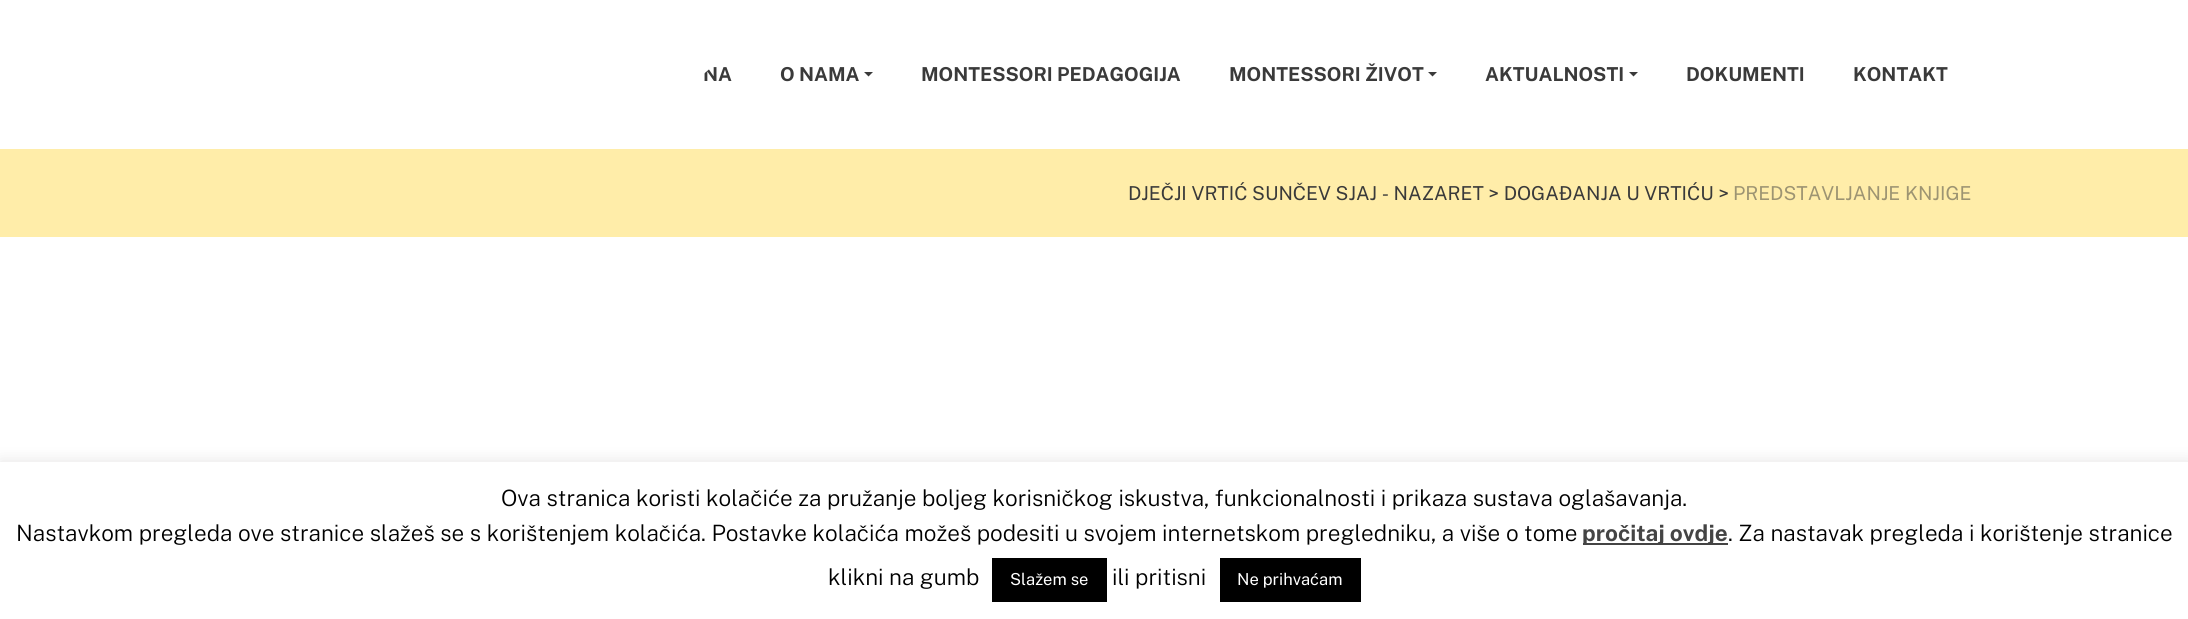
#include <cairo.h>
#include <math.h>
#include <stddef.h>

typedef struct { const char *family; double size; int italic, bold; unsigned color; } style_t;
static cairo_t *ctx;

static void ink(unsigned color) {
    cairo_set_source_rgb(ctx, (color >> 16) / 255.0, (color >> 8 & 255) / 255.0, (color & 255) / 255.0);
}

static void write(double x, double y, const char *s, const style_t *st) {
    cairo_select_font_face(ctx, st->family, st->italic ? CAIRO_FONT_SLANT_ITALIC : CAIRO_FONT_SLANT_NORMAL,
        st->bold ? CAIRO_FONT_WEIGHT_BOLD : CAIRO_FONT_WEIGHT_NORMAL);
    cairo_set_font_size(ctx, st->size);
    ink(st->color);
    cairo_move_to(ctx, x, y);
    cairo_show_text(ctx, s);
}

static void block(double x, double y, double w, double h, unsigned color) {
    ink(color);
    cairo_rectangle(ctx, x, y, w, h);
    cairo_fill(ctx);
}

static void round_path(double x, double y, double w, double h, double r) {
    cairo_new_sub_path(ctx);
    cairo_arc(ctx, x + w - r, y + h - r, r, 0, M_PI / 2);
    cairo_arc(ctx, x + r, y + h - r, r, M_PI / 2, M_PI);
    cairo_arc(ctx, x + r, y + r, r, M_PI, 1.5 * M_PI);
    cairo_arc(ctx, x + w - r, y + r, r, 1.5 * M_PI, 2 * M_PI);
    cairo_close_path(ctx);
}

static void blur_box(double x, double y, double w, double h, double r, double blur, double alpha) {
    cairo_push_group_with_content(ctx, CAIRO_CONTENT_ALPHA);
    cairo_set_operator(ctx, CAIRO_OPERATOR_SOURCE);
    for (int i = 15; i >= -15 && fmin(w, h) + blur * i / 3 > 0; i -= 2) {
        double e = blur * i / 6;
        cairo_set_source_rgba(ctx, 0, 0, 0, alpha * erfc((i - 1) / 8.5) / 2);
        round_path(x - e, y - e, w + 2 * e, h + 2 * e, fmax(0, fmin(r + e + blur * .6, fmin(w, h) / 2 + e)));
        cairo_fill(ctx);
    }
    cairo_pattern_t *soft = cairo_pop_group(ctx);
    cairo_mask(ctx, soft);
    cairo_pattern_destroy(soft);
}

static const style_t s1 = {"Public Sans", 19.2, 0, 1, 0x3a3a3a};
static const style_t s2 = {"Public Sans", 19.2, 0, 0, 0x3a3a3a};
static const style_t s3 = {"Public Sans", 19.2, 0, 0, 0x9d9472};
static const style_t s4 = {"Public Sans Light", 22.5, 0, 0, 0x000000};
static const style_t s5 = {"Public Sans", 22.5, 0, 1, 0x444444};
static const style_t s6 = {"Public Sans", 16.5, 0, 0, 0xffffff};

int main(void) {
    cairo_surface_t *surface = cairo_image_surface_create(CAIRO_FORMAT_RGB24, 2188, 619);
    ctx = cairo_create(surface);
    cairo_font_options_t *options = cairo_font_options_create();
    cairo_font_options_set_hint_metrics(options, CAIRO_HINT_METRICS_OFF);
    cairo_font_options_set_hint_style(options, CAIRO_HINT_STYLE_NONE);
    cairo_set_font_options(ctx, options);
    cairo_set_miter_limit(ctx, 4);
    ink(0xffffff);
    cairo_paint(ctx);
    write(703, 81, "NA", &s1);
    ink(0xffffff);
    cairo_new_path(ctx);
    cairo_move_to(ctx, 218, 0);
    cairo_line_to(ctx, 740, 0);
    cairo_curve_to(ctx, 740, 51.5, 698.5, 93, 647, 93);
    cairo_line_to(ctx, 311, 93);
    cairo_curve_to(ctx, 259.5, 93, 218, 51.5, 218, 0);
    cairo_close_path(ctx);
    cairo_fill(ctx);
    write(780, 81, "O NAMA", &s1);
    cairo_new_path(ctx);
    cairo_move_to(ctx, 864, 72);
    cairo_line_to(ctx, 873, 72);
    cairo_line_to(ctx, 868.5, 76.5);
    cairo_close_path(ctx);
    cairo_fill(ctx);
    write(921, 81, "MONTESSORI PEDAGOGIJA", &s1);
    write(1229, 81, "MONTESSORI ŽIVOT", &s1);
    cairo_new_path(ctx);
    cairo_move_to(ctx, 1428, 72);
    cairo_line_to(ctx, 1437, 72);
    cairo_line_to(ctx, 1432.5, 76.5);
    cairo_close_path(ctx);
    cairo_fill(ctx);
    write(1485, 81, "AKTUALNOSTI", &s1);
    cairo_new_path(ctx);
    cairo_move_to(ctx, 1629, 72);
    cairo_line_to(ctx, 1638, 72);
    cairo_line_to(ctx, 1633.5, 76.5);
    cairo_close_path(ctx);
    cairo_fill(ctx);
    write(1686, 81, "DOKUMENTI", &s1);
    write(1853, 81, "KONTAKT", &s1);
    block(0, 149, 2188, 88, 0xffeda9);
    write(1128, 200, "DJEČJI VRTIĆ SUNČEV SJAJ - NAZARET > DOGAĐANJA U VRTIĆU >", &s2);
    write(1733, 200, "PREDSTAVLJANJE KNJIGE", &s3);
    ink(0xacabab);
    blur_box(0, 461, 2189, 157, 0, 7.5, 0.3);
    block(0, 462, 2188, 157, 0xffffff);
    write(501, 506, "Ova stranica koristi kolačiće za pružanje boljeg korisničkog iskustva, funkcionalnosti i prikaza sustava oglašavanja.", &s4);
    write(16, 541, "Nastavkom pregleda ove stranice slažeš se s korištenjem kolačića. Postavke kolačića možeš podesiti u svojem internetskom pregledniku, a više o tome", &s4);
    block(1583, 543, 145, 2, 0x444444);
    write(1582, 541, "pročitaj ovdje", &s5);
    write(1728, 541, ". Za nastavak pregleda i korištenje stranice", &s4);
    write(828, 585, "klikni na gumb", &s4);
    block(992, 558, 115, 44, 0x000000);
    write(1010, 585, "Slažem se", &s6);
    write(1112, 585, "ili pritisni", &s4);
    block(1220, 558, 141, 44, 0x000000);
    write(1237, 585, "Ne prihvaćam", &s6);
    cairo_surface_write_to_png(surface, "screenshot.png");
    cairo_font_options_destroy(options);
    cairo_destroy(ctx);
    cairo_surface_destroy(surface);
    return 0;
}
